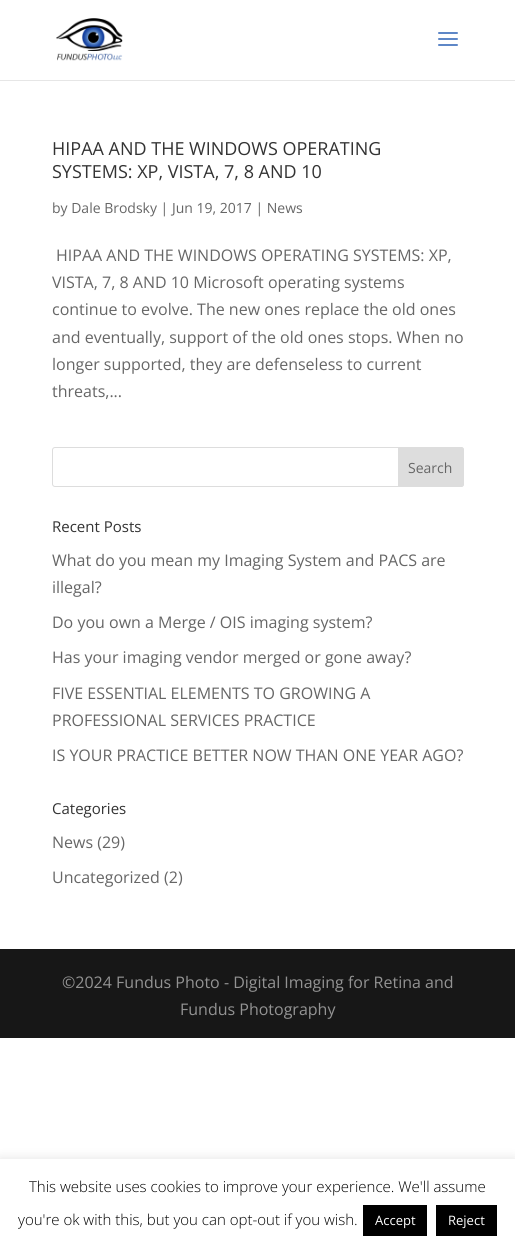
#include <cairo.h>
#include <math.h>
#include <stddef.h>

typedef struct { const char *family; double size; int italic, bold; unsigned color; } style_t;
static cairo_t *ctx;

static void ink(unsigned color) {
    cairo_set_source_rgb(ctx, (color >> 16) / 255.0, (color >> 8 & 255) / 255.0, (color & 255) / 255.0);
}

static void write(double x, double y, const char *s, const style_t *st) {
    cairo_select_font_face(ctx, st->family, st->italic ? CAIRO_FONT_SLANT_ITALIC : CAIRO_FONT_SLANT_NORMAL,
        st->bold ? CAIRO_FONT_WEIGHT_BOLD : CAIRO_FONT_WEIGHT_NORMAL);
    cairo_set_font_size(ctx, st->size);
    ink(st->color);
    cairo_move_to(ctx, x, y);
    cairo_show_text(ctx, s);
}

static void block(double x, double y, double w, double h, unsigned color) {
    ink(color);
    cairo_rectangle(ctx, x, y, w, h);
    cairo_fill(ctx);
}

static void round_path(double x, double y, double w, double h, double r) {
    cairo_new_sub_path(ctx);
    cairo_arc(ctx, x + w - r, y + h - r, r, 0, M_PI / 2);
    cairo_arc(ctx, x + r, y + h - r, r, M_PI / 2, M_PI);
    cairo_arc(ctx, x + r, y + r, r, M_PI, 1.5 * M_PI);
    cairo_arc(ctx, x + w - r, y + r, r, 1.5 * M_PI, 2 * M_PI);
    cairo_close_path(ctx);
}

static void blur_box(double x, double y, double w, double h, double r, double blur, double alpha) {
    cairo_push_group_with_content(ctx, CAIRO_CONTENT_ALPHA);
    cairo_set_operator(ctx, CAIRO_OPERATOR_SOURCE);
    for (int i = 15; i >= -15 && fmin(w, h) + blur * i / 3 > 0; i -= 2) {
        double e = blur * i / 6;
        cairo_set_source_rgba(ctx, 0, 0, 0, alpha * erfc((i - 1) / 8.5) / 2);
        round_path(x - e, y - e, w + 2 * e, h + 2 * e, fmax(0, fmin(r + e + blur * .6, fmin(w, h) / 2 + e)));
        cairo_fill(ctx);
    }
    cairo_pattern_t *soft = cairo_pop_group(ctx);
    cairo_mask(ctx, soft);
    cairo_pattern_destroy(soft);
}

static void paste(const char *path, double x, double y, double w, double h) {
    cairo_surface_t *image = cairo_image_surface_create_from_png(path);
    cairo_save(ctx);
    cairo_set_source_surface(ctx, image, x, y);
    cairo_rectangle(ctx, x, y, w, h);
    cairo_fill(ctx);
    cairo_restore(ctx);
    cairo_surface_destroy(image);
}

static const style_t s1 = {"Open Sans", 18, 0, 0, 0x333333};
static const style_t s2 = {"Open Sans", 14, 0, 0, 0x666666};
static const style_t s3 = {"Open Sans", 16, 0, 0, 0x666666};
static const style_t s4 = {"Open Sans", 15, 0, 0, 0x333333};
static const style_t s5 = {"Open Sans", 16, 0, 0, 0x939393};
static const style_t s6 = {"Open Sans Light", 15, 0, 0, 0x000000};
static const style_t s7 = {"Open Sans", 13, 0, 0, 0xffffff};

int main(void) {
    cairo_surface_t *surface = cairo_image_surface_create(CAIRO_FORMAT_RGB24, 515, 1248);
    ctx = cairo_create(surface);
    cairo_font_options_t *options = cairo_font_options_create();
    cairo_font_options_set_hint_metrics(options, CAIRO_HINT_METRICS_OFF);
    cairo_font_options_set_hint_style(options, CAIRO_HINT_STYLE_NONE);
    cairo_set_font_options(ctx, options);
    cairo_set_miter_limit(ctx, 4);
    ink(0xffffff);
    cairo_paint(ctx);
    block(0, 80, 515, 1, 0xe6e6e6);
    paste("pic1.png", 56, 18, 67, 43);
    paste("pic2.png", 438, 32, 20, 14);
    write(52, 155, "HIPAA AND THE WINDOWS OPERATING", &s1);
    write(52, 178, "SYSTEMS: XP, VISTA, 7, 8 AND 10", &s1);
    write(52, 213, "by Dale Brodsky | Jun 19, 2017 | News", &s2);
    write(56, 261, "HIPAA AND THE WINDOWS OPERATING SYSTEMS: XP,", &s3);
    write(52, 288, "VISTA, 7, 8 AND 10 Microsoft operating systems", &s3);
    write(52, 315, "continue to evolve. The new ones replace the old ones", &s3);
    write(52, 343, "and eventually, support of the old ones stops. When no", &s3);
    write(52, 370, "longer supported, they are defenseless to current", &s3);
    write(52, 397, "threats,...", &s3);
    round_path(52.5, 447.5, 411, 39, 2.5);
    ink(0xdddddd);
    cairo_set_line_width(ctx, 1);
    cairo_stroke(ctx);
    cairo_new_path(ctx);
    cairo_move_to(ctx, 398.5, 447.5);
    cairo_line_to(ctx, 461, 447.5);
    cairo_curve_to(ctx, 462.5, 447.5, 463.5, 448.5, 463.5, 450);
    cairo_line_to(ctx, 463.5, 484);
    cairo_curve_to(ctx, 463.5, 485.5, 462.5, 486.5, 461, 486.5);
    cairo_line_to(ctx, 398.5, 486.5);
    cairo_close_path(ctx);
    cairo_fill_preserve(ctx);
    cairo_stroke(ctx);
    write(408, 473, "Search", &s2);
    write(52, 532, "Recent Posts", &s4);
    write(52, 566, "What do you mean my Imaging System and PACS are", &s3);
    write(52, 593, "illegal?", &s3);
    write(52, 628, "Do you own a Merge / OIS imaging system?", &s3);
    write(52, 663, "Has your imaging vendor merged or gone away?", &s3);
    write(52, 699, "FIVE ESSENTIAL ELEMENTS TO GROWING A", &s3);
    write(52, 726, "PROFESSIONAL SERVICES PRACTICE", &s3);
    write(52, 761, "IS YOUR PRACTICE BETTER NOW THAN ONE YEAR AGO?", &s3);
    write(52, 814, "Categories", &s4);
    write(52, 848, "News (29)", &s3);
    write(52, 883, "Uncategorized (2)", &s3);
    block(0, 949, 515, 89, 0x171717);
    write(62, 988, "©2024 Fundus Photo - Digital Imaging for Retina and", &s5);
    write(180, 1015, "Fundus Photography", &s5);
    ink(0xacabab);
    blur_box(0, 1158, 515, 89, 0, 5, 0.3);
    block(0, 1159, 515, 89, 0xffffff);
    write(29, 1192, "This website uses cookies to improve your experience. We'll assume", &s6);
    write(18, 1225, "you're ok with this, but you can opt-out if you wish.", &s6);
    block(363, 1205, 64, 31, 0x000000);
    write(375, 1225, "Accept", &s7);
    block(436, 1205, 61, 31, 0x000000);
    write(448, 1225, "Reject", &s7);
    cairo_surface_write_to_png(surface, "screenshot.png");
    cairo_font_options_destroy(options);
    cairo_destroy(ctx);
    cairo_surface_destroy(surface);
    return 0;
}
